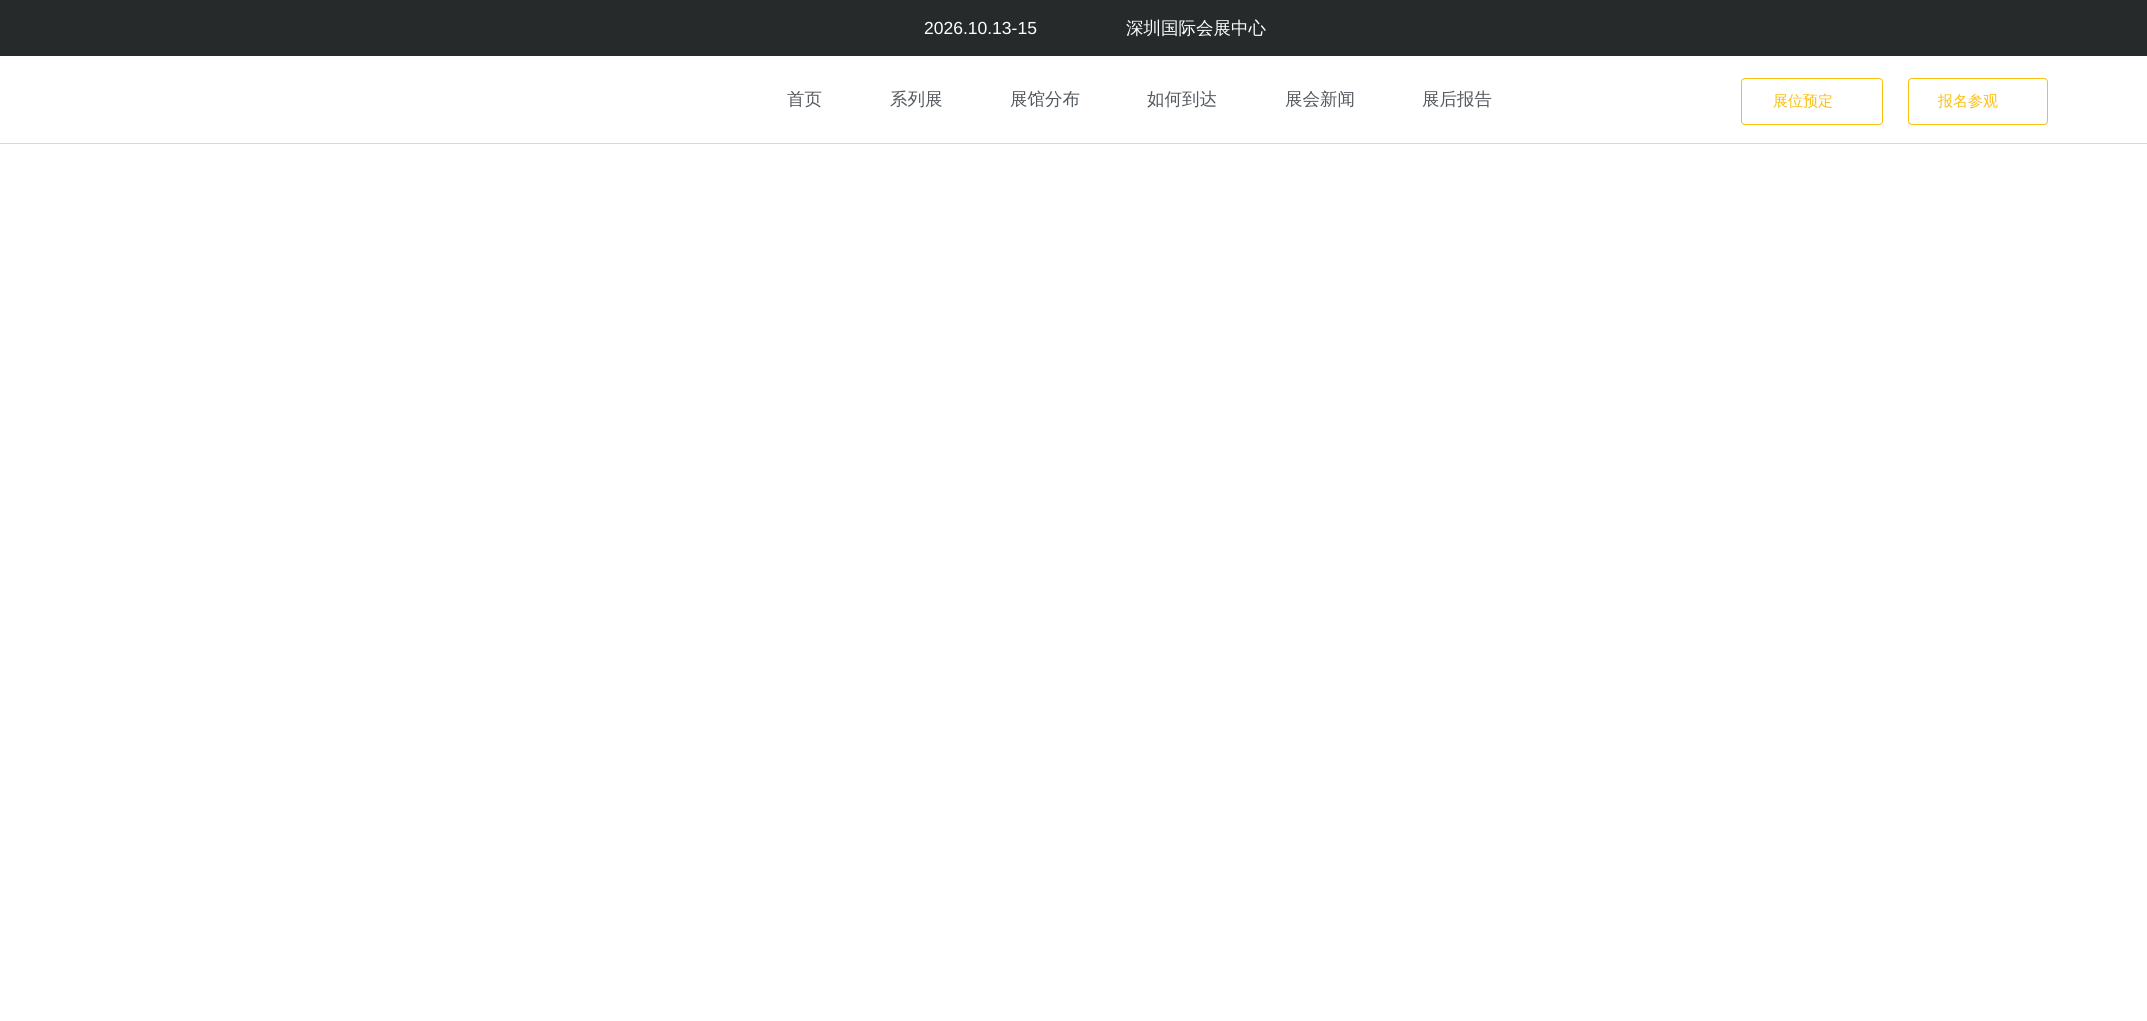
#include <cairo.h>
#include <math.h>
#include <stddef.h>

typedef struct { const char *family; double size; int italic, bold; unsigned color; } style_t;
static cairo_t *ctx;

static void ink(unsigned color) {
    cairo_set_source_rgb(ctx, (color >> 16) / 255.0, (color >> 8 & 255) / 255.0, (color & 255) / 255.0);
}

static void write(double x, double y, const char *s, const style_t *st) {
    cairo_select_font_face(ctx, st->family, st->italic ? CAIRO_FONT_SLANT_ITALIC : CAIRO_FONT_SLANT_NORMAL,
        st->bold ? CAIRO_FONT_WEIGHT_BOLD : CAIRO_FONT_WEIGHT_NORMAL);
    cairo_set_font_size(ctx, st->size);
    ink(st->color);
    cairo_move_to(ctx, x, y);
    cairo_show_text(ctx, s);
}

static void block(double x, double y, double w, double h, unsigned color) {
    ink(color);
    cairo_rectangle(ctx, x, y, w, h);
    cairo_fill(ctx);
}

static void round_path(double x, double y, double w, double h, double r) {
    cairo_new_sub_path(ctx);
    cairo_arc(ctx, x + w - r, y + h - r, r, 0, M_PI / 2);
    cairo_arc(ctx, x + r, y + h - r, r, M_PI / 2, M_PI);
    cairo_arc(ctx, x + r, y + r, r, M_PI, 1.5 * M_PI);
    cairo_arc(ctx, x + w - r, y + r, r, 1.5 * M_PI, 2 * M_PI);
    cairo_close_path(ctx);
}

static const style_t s1 = {"Liberation Sans", 17.5, 0, 0, 0xffffff};
static const style_t s2 = {"WenQuanYi Zen Hei Medium", 17.5, 0, 0, 0xffffff};
static const style_t s3 = {"WenQuanYi Zen Hei Medium", 17.5, 0, 0, 0x54595f};
static const style_t s4 = {"WenQuanYi Zen Hei Medium", 15, 0, 0, 0xf9bf11};

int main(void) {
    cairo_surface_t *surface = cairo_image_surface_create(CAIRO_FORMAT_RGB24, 2147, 1021);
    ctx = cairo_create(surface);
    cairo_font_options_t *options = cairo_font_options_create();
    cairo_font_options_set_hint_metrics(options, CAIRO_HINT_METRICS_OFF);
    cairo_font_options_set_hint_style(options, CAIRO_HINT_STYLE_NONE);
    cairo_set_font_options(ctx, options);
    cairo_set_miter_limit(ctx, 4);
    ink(0xffffff);
    cairo_paint(ctx);
    block(0, 0, 2147, 56, 0x262a2b);
    write(924, 34, "2026.10.13-15", &s1);
    write(1126, 34, "深圳国际会展中心", &s2);
    block(0, 143, 2147, 1, 0xd8d8d8);
    write(787, 105, "首页", &s3);
    write(890, 105, "系列展", &s3);
    write(1010, 105, "展馆分布", &s3);
    write(1147, 105, "如何到达", &s3);
    write(1285, 105, "展会新闻", &s3);
    write(1422, 105, "展后报告", &s3);
    round_path(1741.5, 78.5, 141, 46, 3.5);
    ink(0xf9bf11);
    cairo_set_line_width(ctx, 1);
    cairo_stroke(ctx);
    write(1773, 106, "展位预定", &s4);
    round_path(1908.5, 78.5, 139, 46, 3.5);
    cairo_stroke(ctx);
    write(1938, 106, "报名参观", &s4);
    cairo_surface_write_to_png(surface, "screenshot.png");
    cairo_font_options_destroy(options);
    cairo_destroy(ctx);
    cairo_surface_destroy(surface);
    return 0;
}
